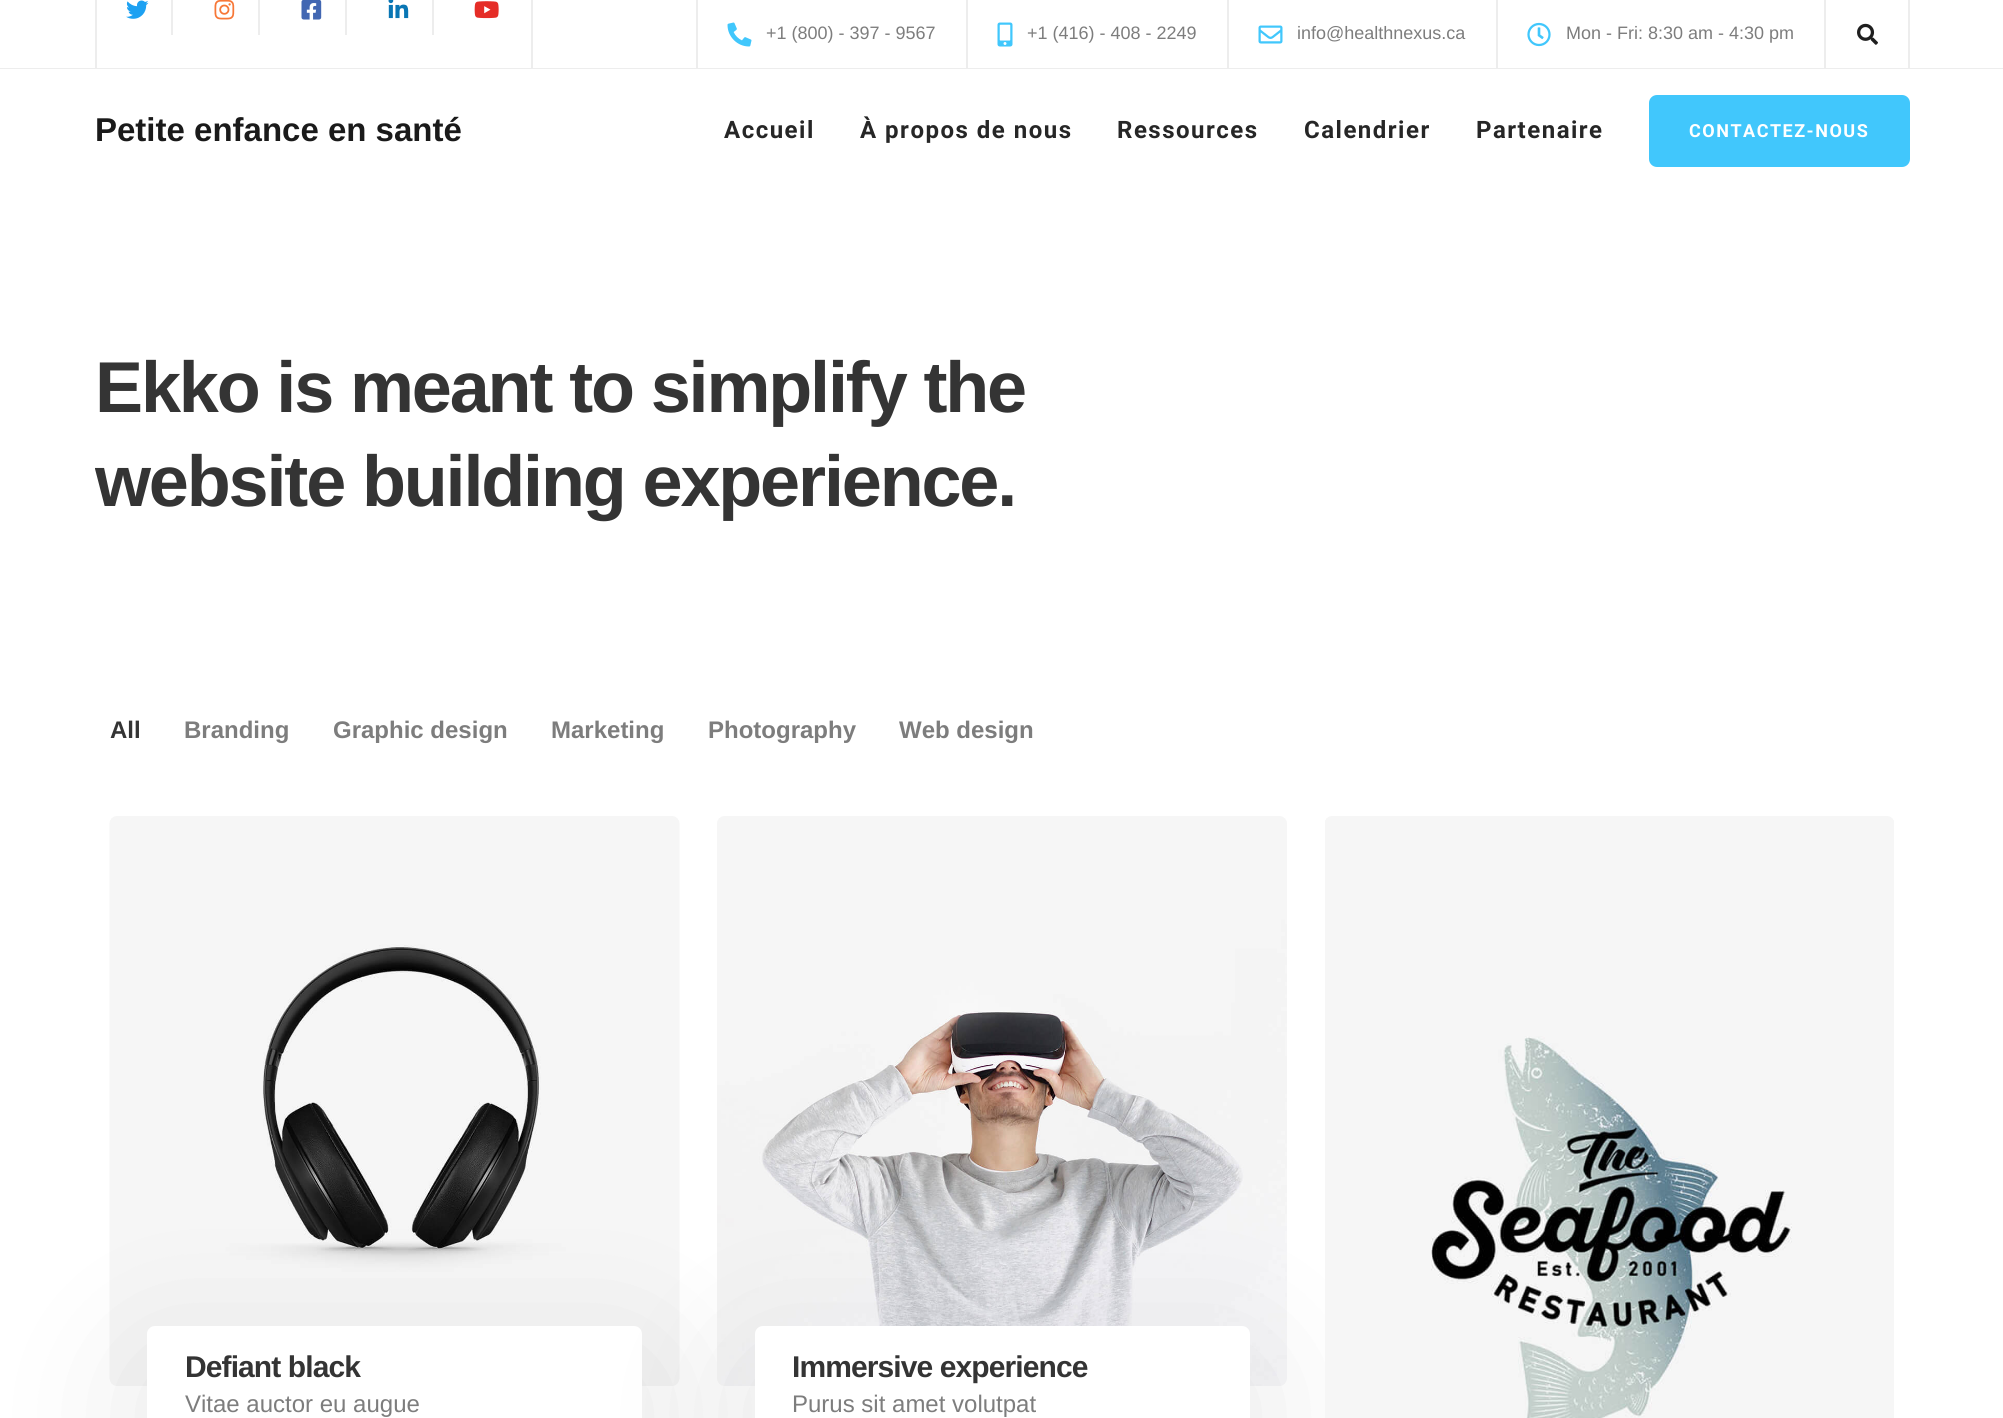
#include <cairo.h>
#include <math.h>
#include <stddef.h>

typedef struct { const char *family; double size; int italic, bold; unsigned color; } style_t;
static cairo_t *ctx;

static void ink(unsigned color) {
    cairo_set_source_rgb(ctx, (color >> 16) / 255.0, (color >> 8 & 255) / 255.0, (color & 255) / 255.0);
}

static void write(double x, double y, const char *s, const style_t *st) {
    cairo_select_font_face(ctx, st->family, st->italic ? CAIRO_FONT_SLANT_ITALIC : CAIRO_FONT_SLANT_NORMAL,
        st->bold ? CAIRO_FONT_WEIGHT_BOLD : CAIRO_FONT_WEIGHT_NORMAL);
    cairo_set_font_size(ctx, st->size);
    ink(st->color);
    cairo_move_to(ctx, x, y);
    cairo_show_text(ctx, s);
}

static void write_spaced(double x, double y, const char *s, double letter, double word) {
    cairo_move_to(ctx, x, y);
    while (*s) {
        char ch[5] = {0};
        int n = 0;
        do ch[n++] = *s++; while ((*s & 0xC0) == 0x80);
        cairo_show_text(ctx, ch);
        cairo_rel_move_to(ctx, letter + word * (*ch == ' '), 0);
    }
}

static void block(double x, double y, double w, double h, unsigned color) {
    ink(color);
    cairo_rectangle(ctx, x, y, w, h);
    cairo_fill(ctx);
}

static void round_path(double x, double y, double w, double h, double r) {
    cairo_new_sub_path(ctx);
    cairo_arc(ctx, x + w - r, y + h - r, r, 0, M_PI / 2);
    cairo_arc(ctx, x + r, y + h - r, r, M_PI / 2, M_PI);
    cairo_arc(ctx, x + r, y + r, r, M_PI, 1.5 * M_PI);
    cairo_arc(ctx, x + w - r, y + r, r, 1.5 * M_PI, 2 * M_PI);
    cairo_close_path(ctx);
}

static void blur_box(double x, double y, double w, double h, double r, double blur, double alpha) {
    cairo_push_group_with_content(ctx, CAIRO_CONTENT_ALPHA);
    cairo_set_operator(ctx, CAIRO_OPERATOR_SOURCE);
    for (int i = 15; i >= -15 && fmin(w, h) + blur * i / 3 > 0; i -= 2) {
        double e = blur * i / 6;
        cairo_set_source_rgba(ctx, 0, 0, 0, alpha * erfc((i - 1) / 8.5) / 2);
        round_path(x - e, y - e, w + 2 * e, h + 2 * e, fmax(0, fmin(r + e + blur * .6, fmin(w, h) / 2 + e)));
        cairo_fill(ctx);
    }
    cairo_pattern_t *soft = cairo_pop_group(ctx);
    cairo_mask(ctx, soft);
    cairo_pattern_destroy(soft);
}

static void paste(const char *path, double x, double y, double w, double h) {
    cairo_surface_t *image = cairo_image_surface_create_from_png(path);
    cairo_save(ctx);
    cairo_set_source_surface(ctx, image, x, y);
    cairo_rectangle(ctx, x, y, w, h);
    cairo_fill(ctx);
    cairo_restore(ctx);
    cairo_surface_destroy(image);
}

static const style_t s1 = {"Liberation Sans", 18, 0, 0, 0x7d7d7d};
static const style_t s2 = {"Liberation Sans", 33, 0, 1, 0x1a1a1a};
static const style_t s3 = {"Liberation Sans", 24, 0, 1, 0x343434};
static const style_t s4 = {"Liberation Sans", 24, 0, 1, 0x7d7d7d};
static const style_t s5 = {"Liberation Sans", 24, 0, 0, 0x7d7d7d};

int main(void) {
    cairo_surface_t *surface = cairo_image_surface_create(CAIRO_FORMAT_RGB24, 2003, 1418);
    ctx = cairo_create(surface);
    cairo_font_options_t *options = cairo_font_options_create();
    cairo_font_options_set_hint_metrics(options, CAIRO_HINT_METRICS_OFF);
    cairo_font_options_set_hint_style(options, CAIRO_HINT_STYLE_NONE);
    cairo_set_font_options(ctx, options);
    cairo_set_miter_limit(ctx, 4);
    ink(0xffffff);
    cairo_paint(ctx);
    block(0, 68, 2003, 1, 0xededed);
    block(531, 0, 2, 68, 0xededed);
    block(95, 0, 2, 68, 0xededed);
    block(171, 0, 2, 35, 0xededed);
    paste("pic1.png", 126, 0, 23, 19);
    block(258, 0, 2, 35, 0xededed);
    paste("pic2.png", 214, 0, 21, 20);
    block(345, 0, 2, 35, 0xededed);
    paste("pic3.png", 301, 0, 21, 20);
    block(432, 0, 2, 35, 0xededed);
    paste("pic4.png", 388, 0, 21, 19);
    paste("pic5.png", 474, 1, 25, 18);
    block(696, 0, 2, 68, 0xededed);
    block(966, 0, 2, 68, 0xededed);
    paste("pic6.png", 727, 22, 25, 25);
    write(766, 39, "+1 (800) - 397 - 9567", &s1);
    block(1227, 0, 2, 68, 0xededed);
    paste("pic7.png", 997, 22, 16, 25);
    write(1027, 39, "+1 (416) - 408 - 2249", &s1);
    block(1496, 0, 2, 68, 0xededed);
    paste("pic8.png", 1258, 25, 25, 19);
    write(1297, 39, "info@healthnexus.ca", &s1);
    paste("pic9.png", 1527, 22, 24, 25);
    write(1566, 39, "Mon - Fri: 8:30 am - 4:30 pm", &s1);
    block(1908, 0, 2, 68, 0xededed);
    block(1824, 0, 2, 68, 0xededed);
    paste("pic10.png", 1857, 23, 21, 22);
    write(95, 141, "Petite enfance en santé", &s2);
    cairo_select_font_face(ctx, "Roboto", CAIRO_FONT_SLANT_NORMAL, CAIRO_FONT_WEIGHT_BOLD);
    cairo_set_font_size(ctx, 24);
    ink(0x262626);
    write_spaced(724, 138, "Accueil", 1.5, 0);
    write_spaced(860, 138, "À propos de nous", 1.5, 0);
    write_spaced(1117, 138, "Ressources", 1.5, 0);
    write_spaced(1304, 138, "Calendrier", 1.5, 0);
    write_spaced(1476, 138, "Partenaire", 1.5, 0);
    ink(0x41c7fc);
    round_path(1650.5, 96.5, 258, 69, 6.5);
    cairo_fill_preserve(ctx);
    cairo_set_line_width(ctx, 3);
    cairo_stroke(ctx);
    cairo_set_font_size(ctx, 18);
    ink(0xffffff);
    write_spaced(1689, 137, "CONTACTEZ-NOUS", 1.5, 0);
    cairo_select_font_face(ctx, "Liberation Sans", CAIRO_FONT_SLANT_NORMAL, CAIRO_FONT_WEIGHT_BOLD);
    cairo_set_font_size(ctx, 72);
    ink(0x343434);
    write_spaced(95, 412, "Ekko is meant to simplify the", -2.15, 0);
    cairo_save(ctx);
    cairo_rectangle(ctx, 95, 338, 1039, 225);
    cairo_clip(ctx);
    write_spaced(95, 506, "website building experience.", -2.15, 0);
    cairo_restore(ctx);
    write(110, 738, "All", &s3);
    write(184, 738, "Branding", &s4);
    write(333, 738, "Graphic design", &s4);
    write(551, 738, "Marketing", &s4);
    write(708, 738, "Photography", &s4);
    write(899, 738, "Web design", &s4);
    paste("pic11.png", 109, 816, 571, 570);
    ink(0x000000);
    blur_box(147, 1364, 495, 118, 8, 73.5, 0.1);
    ink(0xffffff);
    round_path(147, 1326, 495, 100, 8);
    cairo_fill(ctx);
    cairo_set_font_size(ctx, 30);
    ink(0x343434);
    write_spaced(185, 1377, "Defiant black", -0.9, 0);
    write(185, 1412, "Vitae auctor eu augue", &s5);
    paste("pic12.png", 717, 816, 570, 570);
    ink(0x000000);
    blur_box(755, 1364, 495, 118, 8, 73.5, 0.1);
    ink(0xffffff);
    round_path(755, 1326, 495, 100, 8);
    cairo_fill(ctx);
    cairo_select_font_face(ctx, "Liberation Sans", CAIRO_FONT_SLANT_NORMAL, CAIRO_FONT_WEIGHT_BOLD);
    cairo_set_font_size(ctx, 30);
    ink(0x343434);
    write_spaced(792, 1377, "Immersive experience", -0.9, 0);
    write(792, 1412, "Purus sit amet volutpat", &s5);
    paste("pic13.png", 1325, 816, 569, 602);
    cairo_surface_write_to_png(surface, "screenshot.png");
    cairo_font_options_destroy(options);
    cairo_destroy(ctx);
    cairo_surface_destroy(surface);
    return 0;
}
